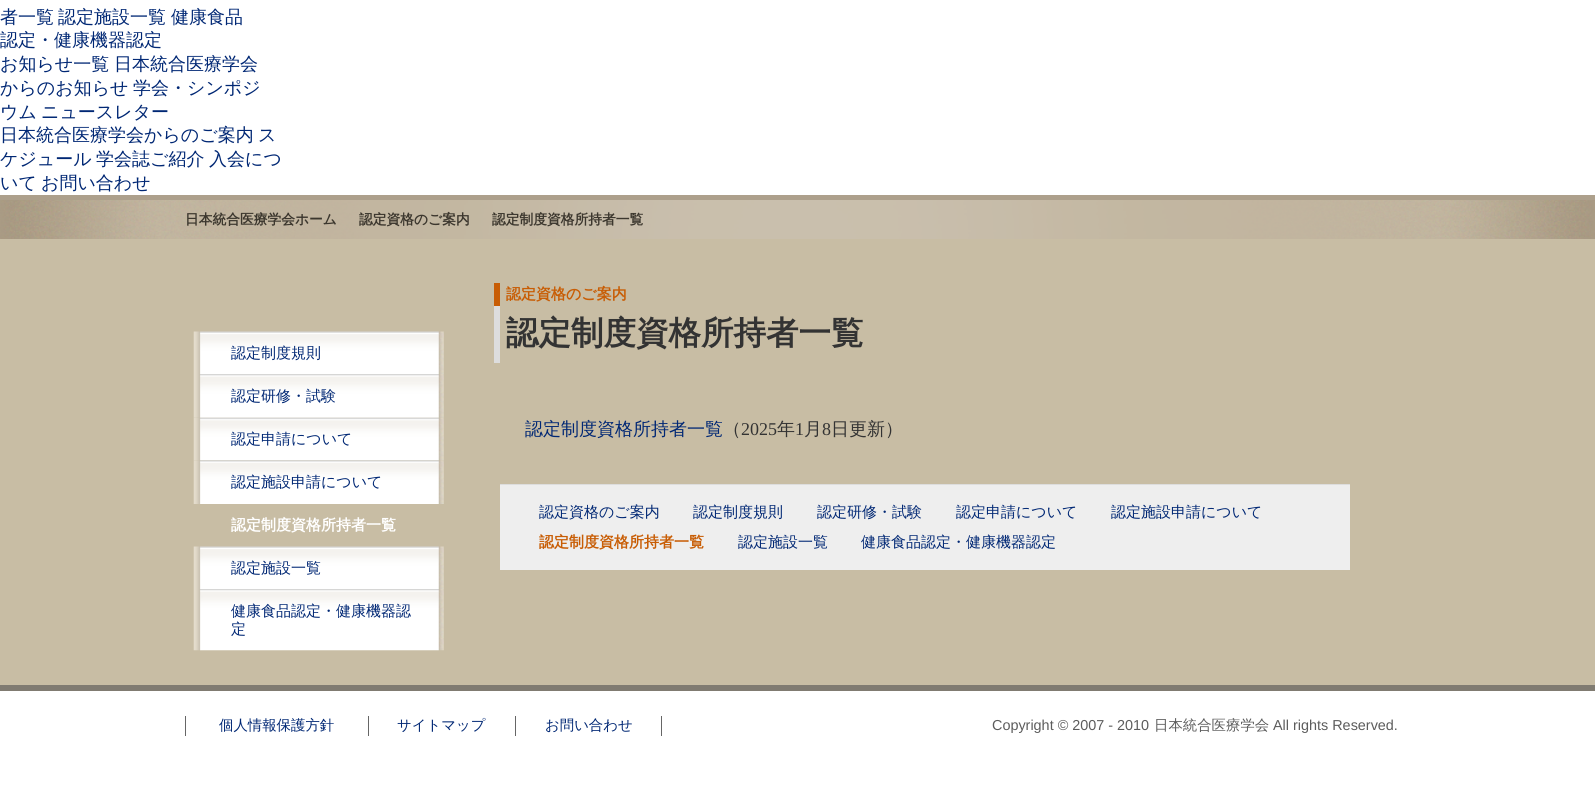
#include <cairo.h>
#include <math.h>
#include <stddef.h>

typedef struct { const char *family; double size; int italic, bold; unsigned color; } style_t;
static cairo_t *ctx;

static void ink(unsigned color) {
    cairo_set_source_rgb(ctx, (color >> 16) / 255.0, (color >> 8 & 255) / 255.0, (color & 255) / 255.0);
}

static void write(double x, double y, const char *s, const style_t *st) {
    cairo_select_font_face(ctx, st->family, st->italic ? CAIRO_FONT_SLANT_ITALIC : CAIRO_FONT_SLANT_NORMAL,
        st->bold ? CAIRO_FONT_WEIGHT_BOLD : CAIRO_FONT_WEIGHT_NORMAL);
    cairo_set_font_size(ctx, st->size);
    ink(st->color);
    cairo_move_to(ctx, x, y);
    cairo_show_text(ctx, s);
}

static void block(double x, double y, double w, double h, unsigned color) {
    ink(color);
    cairo_rectangle(ctx, x, y, w, h);
    cairo_fill(ctx);
}

static void paste(const char *path, double x, double y, double w, double h) {
    cairo_surface_t *image = cairo_image_surface_create_from_png(path);
    cairo_save(ctx);
    cairo_set_source_surface(ctx, image, x, y);
    cairo_rectangle(ctx, x, y, w, h);
    cairo_fill(ctx);
    cairo_restore(ctx);
    cairo_surface_destroy(image);
}

static const style_t s1 = {"WenQuanYi Zen Hei Medium", 18, 0, 0, 0x002774};
static const style_t s2 = {"WenQuanYi Zen Hei", 13.75, 0, 1, 0x3c372e};
static const style_t s3 = {"WenQuanYi Zen Hei Medium", 15, 0, 0, 0x002774};
static const style_t s4 = {"WenQuanYi Zen Hei", 15, 0, 1, 0xffffff};
static const style_t s5 = {"WenQuanYi Zen Hei", 15, 0, 1, 0xc85d05};
static const style_t s6 = {"WenQuanYi Zen Hei", 32.5, 0, 1, 0x333333};
static const style_t s7 = {"WenQuanYi Zen Hei Medium", 18, 0, 0, 0x333333};
static const style_t s8 = {"Liberation Serif", 18, 0, 0, 0x333333};
static const style_t s9 = {"WenQuanYi Zen Hei Medium", 14.4, 0, 0, 0x002774};
static const style_t s10 = {"Liberation Sans", 14.4, 0, 0, 0x5c5c5c};
static const style_t s11 = {"WenQuanYi Zen Hei Medium", 14.4, 0, 0, 0x5c5c5c};

int main(void) {
    cairo_surface_t *surface = cairo_image_surface_create(CAIRO_FORMAT_RGB24, 1595, 797);
    ctx = cairo_create(surface);
    cairo_font_options_t *options = cairo_font_options_create();
    cairo_font_options_set_hint_metrics(options, CAIRO_HINT_METRICS_OFF);
    cairo_font_options_set_hint_style(options, CAIRO_HINT_STYLE_NONE);
    cairo_set_font_options(ctx, options);
    cairo_set_miter_limit(ctx, 4);
    ink(0xffffff);
    cairo_paint(ctx);
    write(0, 23, "者一覧", &s1);
    write(58, 23, "認定施設一覧", &s1);
    write(171, 23, "健康食品", &s1);
    write(0, 46, "認定・健康機器認定", &s1);
    write(0, 70, "お知らせ一覧", &s1);
    write(114, 70, "日本統合医療学会", &s1);
    write(0, 94, "からのお知らせ", &s1);
    write(133, 94, "学会・シンポジ", &s1);
    write(0, 118, "ウム", &s1);
    write(41, 118, "ニュースレター", &s1);
    write(0, 141, "日本統合医療学会からのご案内", &s1);
    write(258, 141, "ス", &s1);
    write(0, 165, "ケジュール", &s1);
    write(96, 165, "学会誌ご紹介", &s1);
    write(209, 165, "入会につ", &s1);
    write(0, 189, "いて", &s1);
    write(41, 189, "お問い合わせ", &s1);
    paste("pic1.png", 0, 200, 1595, 39);
    block(0, 195, 1595, 5, 0xada08c);
    write(185, 224, "日本統合医療学会ホーム", &s2);
    write(359, 224, "認定資格のご案内", &s2);
    write(492, 224, "認定制度資格所持者一覧", &s2);
    block(0, 239, 1595, 446, 0xc8bda4);
    paste("pic2.png", 193, 331, 251, 43);
    write(231, 358, "認定制度規則", &s3);
    paste("pic3.png", 193, 374, 251, 44);
    write(231, 401, "認定研修・試験", &s3);
    paste("pic4.png", 193, 417, 251, 44);
    write(231, 444, "認定申請について", &s3);
    paste("pic5.png", 193, 460, 251, 44);
    write(231, 487, "認定施設申請について", &s3);
    write(231, 530, "認定制度資格所持者一覧", &s4);
    paste("pic2.png", 193, 546, 251, 43);
    write(231, 573, "認定施設一覧", &s3);
    paste("pic6.png", 193, 589, 251, 62);
    write(231, 616, "健康食品認定・健康機器認", &s3);
    write(231, 634, "定", &s3);
    block(494, 283, 6, 23, 0xc85d05);
    write(506, 299, "認定資格のご案内", &s5);
    block(494, 306, 6, 57, 0xdddddd);
    write(506, 344, "認定制度資格所持者一覧", &s6);
    write(525, 435, "認定制度資格所持者一覧", &s1);
    write(723, 435, "（", &s7);
    write(741, 435, "2025", &s8);
    write(777, 435, "年", &s7);
    write(795, 435, "1", &s8);
    write(804, 435, "月", &s7);
    write(822, 435, "8", &s8);
    write(831, 435, "日更新）", &s7);
    block(500, 485, 850, 85, 0xeeeeee);
    block(500, 484, 850, 1, 0xdddddd);
    write(539, 517, "認定資格のご案内", &s3);
    write(693, 517, "認定制度規則", &s3);
    write(817, 517, "認定研修・試験", &s3);
    write(956, 517, "認定申請について", &s3);
    write(1111, 517, "認定施設申請について", &s3);
    write(539, 547, "認定制度資格所持者一覧", &s5);
    write(738, 547, "認定施設一覧", &s3);
    write(861, 547, "健康食品認定・健康機器認定", &s3);
    block(0, 685, 1595, 6, 0x807b71);
    block(185, 716, 1, 20, 0x666666);
    write(219, 730, "個人情報保護方針", &s9);
    block(368, 716, 1, 20, 0x666666);
    write(397, 730, "サイトマップ", &s9);
    block(661, 716, 1, 20, 0x666666);
    block(515, 716, 1, 20, 0x666666);
    write(545, 730, "お問い合わせ", &s9);
    write(992, 730, "Copyright © 2007 - 2010", &s10);
    write(1154, 730, "日本統合医療学会", &s11);
    write(1273, 730, "All rights Reserved.", &s10);
    cairo_surface_write_to_png(surface, "screenshot.png");
    cairo_font_options_destroy(options);
    cairo_destroy(ctx);
    cairo_surface_destroy(surface);
    return 0;
}
